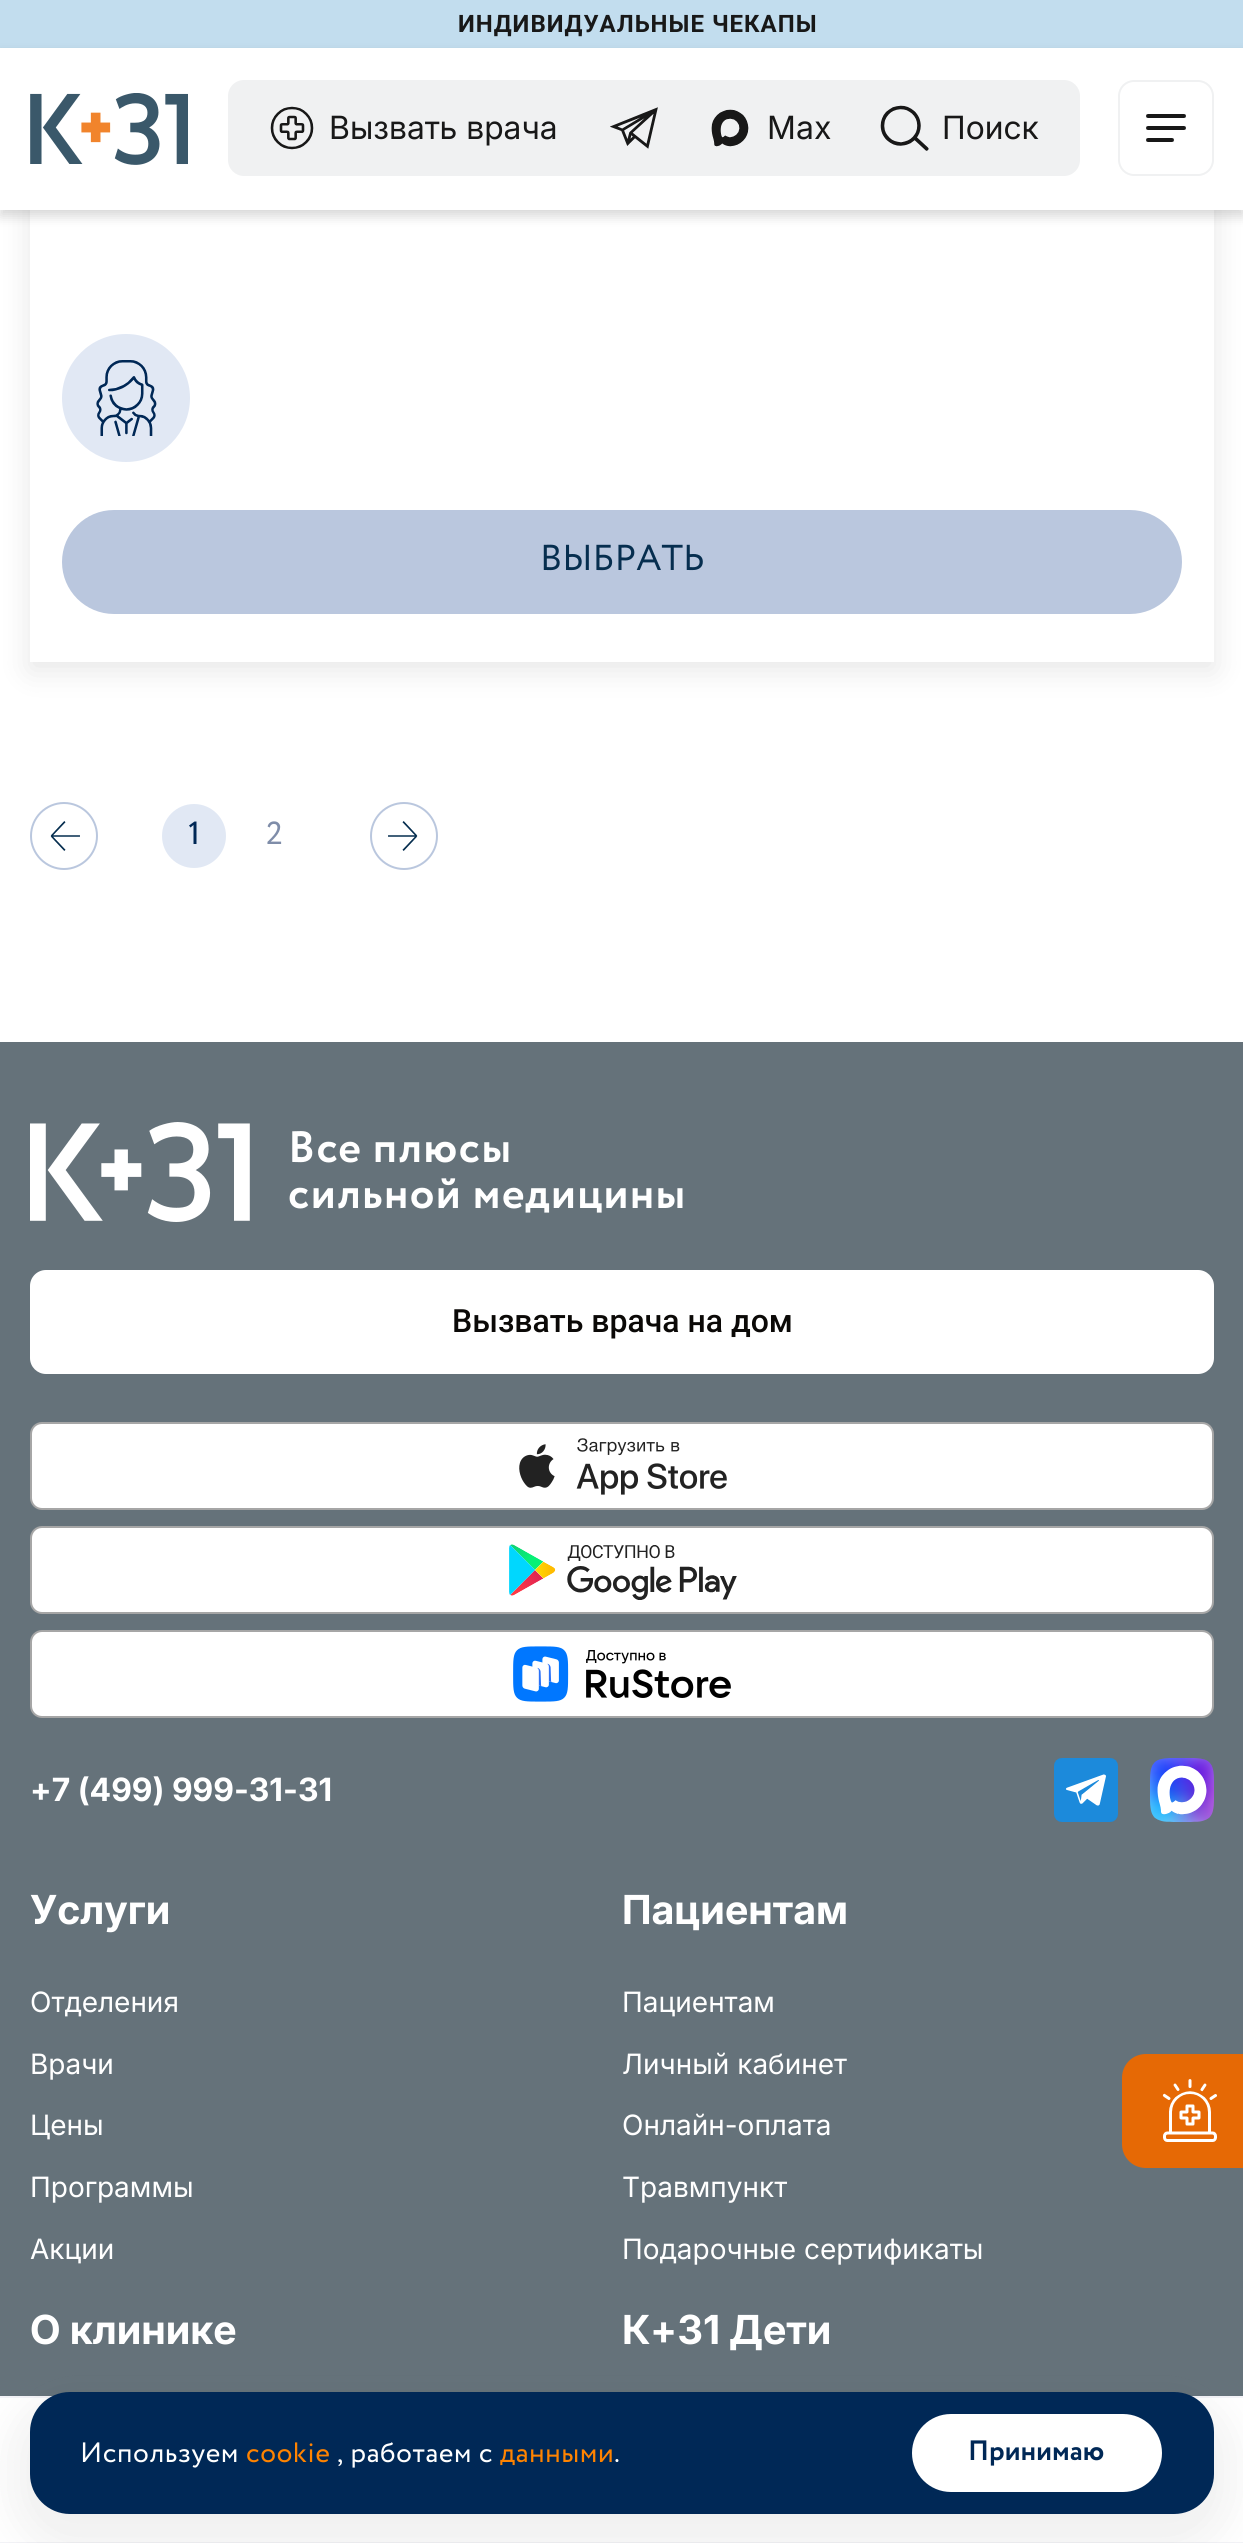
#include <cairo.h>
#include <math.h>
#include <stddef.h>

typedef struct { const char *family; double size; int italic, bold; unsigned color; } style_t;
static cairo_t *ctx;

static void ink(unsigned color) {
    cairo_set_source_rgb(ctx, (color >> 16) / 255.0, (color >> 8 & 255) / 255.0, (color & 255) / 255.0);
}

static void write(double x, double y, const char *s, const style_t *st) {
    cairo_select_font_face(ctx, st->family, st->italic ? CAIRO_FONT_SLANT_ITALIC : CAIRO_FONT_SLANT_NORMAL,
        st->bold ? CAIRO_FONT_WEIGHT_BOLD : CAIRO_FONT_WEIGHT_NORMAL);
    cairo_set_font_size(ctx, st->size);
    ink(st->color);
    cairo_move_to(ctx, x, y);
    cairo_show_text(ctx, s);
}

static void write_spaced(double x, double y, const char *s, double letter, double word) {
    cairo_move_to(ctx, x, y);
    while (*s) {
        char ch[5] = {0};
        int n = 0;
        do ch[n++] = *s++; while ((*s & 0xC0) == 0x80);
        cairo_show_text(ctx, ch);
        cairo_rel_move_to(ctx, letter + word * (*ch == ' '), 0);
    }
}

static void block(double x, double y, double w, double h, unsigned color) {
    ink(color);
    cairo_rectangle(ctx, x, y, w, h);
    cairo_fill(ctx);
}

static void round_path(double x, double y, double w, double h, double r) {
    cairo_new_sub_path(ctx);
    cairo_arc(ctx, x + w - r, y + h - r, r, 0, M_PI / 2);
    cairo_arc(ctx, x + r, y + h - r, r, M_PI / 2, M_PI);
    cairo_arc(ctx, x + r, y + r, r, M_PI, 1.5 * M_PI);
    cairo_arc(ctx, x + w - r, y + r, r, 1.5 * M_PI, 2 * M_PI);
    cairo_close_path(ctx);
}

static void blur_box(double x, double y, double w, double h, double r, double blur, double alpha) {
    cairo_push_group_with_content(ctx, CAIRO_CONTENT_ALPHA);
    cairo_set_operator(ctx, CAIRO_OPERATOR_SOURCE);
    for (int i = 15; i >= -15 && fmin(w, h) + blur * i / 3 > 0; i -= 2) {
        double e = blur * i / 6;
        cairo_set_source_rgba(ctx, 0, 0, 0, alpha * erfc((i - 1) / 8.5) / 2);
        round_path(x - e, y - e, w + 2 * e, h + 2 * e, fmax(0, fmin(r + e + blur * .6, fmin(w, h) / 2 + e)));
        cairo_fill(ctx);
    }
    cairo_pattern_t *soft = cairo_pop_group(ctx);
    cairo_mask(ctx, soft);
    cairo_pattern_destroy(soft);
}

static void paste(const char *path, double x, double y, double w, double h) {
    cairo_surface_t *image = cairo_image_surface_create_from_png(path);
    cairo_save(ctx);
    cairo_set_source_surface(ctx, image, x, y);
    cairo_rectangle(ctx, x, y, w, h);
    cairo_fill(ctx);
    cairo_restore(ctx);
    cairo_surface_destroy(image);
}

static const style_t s1 = {"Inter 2", 32, 0, 0, 0x181818};
static const style_t s2 = {"Inter", 32, 0, 0, 0x181818};
static const style_t s3 = {"Roboto Medium", 32, 0, 0, 0x0b0907};
static const style_t s4 = {"Inter", 32, 0, 1, 0xffffff};
static const style_t s5 = {"Inter 2", 40, 0, 1, 0xffffff};
static const style_t s6 = {"Inter", 28, 0, 0, 0xffffff};
static const style_t s7 = {"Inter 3", 40, 0, 1, 0xffffff};

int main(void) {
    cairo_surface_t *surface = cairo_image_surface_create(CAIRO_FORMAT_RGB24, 1243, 2543);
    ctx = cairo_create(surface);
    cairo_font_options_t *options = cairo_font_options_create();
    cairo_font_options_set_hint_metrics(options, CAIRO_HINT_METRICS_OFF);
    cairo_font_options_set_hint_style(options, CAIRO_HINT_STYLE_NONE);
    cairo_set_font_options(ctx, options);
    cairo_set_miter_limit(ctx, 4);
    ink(0xffffff);
    cairo_paint(ctx);
    cairo_save(ctx);
    cairo_set_fill_rule(ctx, CAIRO_FILL_RULE_EVEN_ODD);
    cairo_new_path(ctx);
    cairo_move_to(ctx, 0, 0);
    cairo_line_to(ctx, 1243, 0);
    cairo_line_to(ctx, 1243, 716);
    cairo_line_to(ctx, 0, 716);
    cairo_close_path(ctx);
    cairo_move_to(ctx, 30, 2);
    cairo_line_to(ctx, 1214, 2);
    cairo_line_to(ctx, 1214, 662);
    cairo_line_to(ctx, 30, 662);
    cairo_close_path(ctx);
    cairo_clip(ctx);
    ink(0x000000);
    blur_box(30, 10, 1184, 660, 0, 15, 0.1);
    cairo_restore(ctx);
    ink(0xe1e8f4);
    cairo_arc(ctx, 126, 398, 64, 0, 2 * M_PI);
    cairo_fill(ctx);
    paste("pic1.png", 96, 360, 61, 76);
    ink(0xbac7de);
    round_path(62, 510, 1120, 104, 52);
    cairo_fill(ctx);
    paste("pic2.png", 543, 544, 160, 27);
    cairo_new_path(ctx);
    cairo_move_to(ctx, 64, 869);
    cairo_curve_to(ctx, 46, 869, 31, 854, 31, 836);
    cairo_curve_to(ctx, 31, 817.5, 46, 803, 64, 803);
    cairo_curve_to(ctx, 82, 803, 97, 817.5, 97, 836);
    cairo_curve_to(ctx, 97, 854, 82, 869, 64, 869);
    cairo_close_path(ctx);
    cairo_stroke(ctx);
    paste("pic3.png", 50, 821, 30, 30);
    ink(0xe1e8f4);
    cairo_arc(ctx, 194, 836, 32, 0, 2 * M_PI);
    cairo_fill(ctx);
    ink(0x002856);
    cairo_new_path(ctx);
    cairo_move_to(ctx, 189, 825.5);
    cairo_line_to(ctx, 194.5, 821.5);
    cairo_line_to(ctx, 196.5, 821.5);
    cairo_line_to(ctx, 196.5, 844);
    cairo_line_to(ctx, 193.5, 844);
    cairo_line_to(ctx, 193.5, 825);
    cairo_line_to(ctx, 190.5, 827.5);
    cairo_close_path(ctx);
    cairo_fill(ctx);
    paste("pic4.png", 267, 821, 15, 23);
    cairo_arc(ctx, 404, 836, 33, 0, 2 * M_PI);
    ink(0xbac7de);
    cairo_stroke(ctx);
    paste("pic5.png", 388, 821, 30, 30);
    block(0, 0, 1243, 48, 0xc2ddee);
    cairo_select_font_face(ctx, "Roboto", CAIRO_FONT_SLANT_NORMAL, CAIRO_FONT_WEIGHT_BOLD);
    cairo_set_font_size(ctx, 24);
    ink(0x181818);
    write_spaced(458, 32, "ИНДИВИДУАЛЬНЫЕ ЧЕКАПЫ", 1, 0);
    ink(0x000000);
    blur_box(0, 54, 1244, 162, 0, 6, 0.16);
    block(0, 48, 1243, 162, 0xffffff);
    paste("pic6.png", 30, 93, 158, 72);
    ink(0xf0f1f2);
    round_path(228, 80, 852, 96, 16);
    cairo_fill(ctx);
    paste("pic7.png", 270, 106, 44, 44);
    write(329, 139, "Вызвать врача", &s1);
    paste("pic8.png", 610, 107, 48, 42);
    paste("pic9.png", 711, 109, 38, 38);
    write(767, 139, "Max", &s2);
    paste("pic10.png", 880, 105, 49, 46);
    write(942, 139, "Поиск", &s1);
    round_path(1119, 81, 94, 94, 15);
    ink(0xf0f1f2);
    cairo_stroke(ctx);
    paste("pic11.png", 1146, 114, 40, 28);
    block(0, 1042, 1243, 1354, 0x65727a);
    paste("pic12.png", 30, 1122, 653, 100);
    ink(0xffffff);
    round_path(30, 1270, 1184, 104, 16);
    cairo_fill(ctx);
    write(452, 1332, "Вызвать врача на дом", &s3);
    ink(0xffffff);
    round_path(31, 1423, 1182, 86, 11);
    cairo_fill_preserve(ctx);
    ink(0xa6a6a6);
    cairo_stroke(ctx);
    paste("pic13.png", 519, 1438, 208, 57);
    ink(0xffffff);
    round_path(31, 1527, 1182, 86, 11);
    cairo_fill_preserve(ctx);
    ink(0xa6a6a6);
    cairo_stroke(ctx);
    paste("pic14.png", 509, 1544, 228, 56);
    ink(0xffffff);
    round_path(31, 1631, 1182, 86, 11);
    cairo_fill_preserve(ctx);
    ink(0xa6a6a6);
    cairo_stroke(ctx);
    paste("pic15.png", 513, 1646, 218, 56);
    write(30, 1801, "+7 (499) 999-31-31", &s4);
    paste("pic16.png", 1054, 1758, 64, 64);
    paste("pic17.png", 1150, 1758, 64, 64);
    write(30, 1924, "Услуги", &s5);
    write(30, 2012, "Отделения", &s6);
    write(30, 2074, "Врачи", &s6);
    write(30, 2135, "Цены", &s6);
    write(30, 2197, "Программы", &s6);
    write(30, 2259, "Акции", &s6);
    write(622, 1924, "Пациентам", &s5);
    write(622, 2012, "Пациентам", &s6);
    write(622, 2074, "Личный кабинет", &s6);
    write(622, 2135, "Онлайн-оплата", &s6);
    write(622, 2197, "Травмпункт", &s6);
    write(622, 2259, "Подарочные сертификаты", &s6);
    write(30, 2344, "О клинике", &s5);
    write(622, 2344, "К", &s5);
    write(650, 2344, "+31", &s7);
    write(729, 2344, "Дети", &s5);
    block(0, 2396, 1243, 2, 0xf3f3f7);
    block(0, 2542, 1243, 1, 0xf3f3f7);
    ink(0xe66905);
    cairo_new_path(ctx);
    cairo_move_to(ctx, 1146, 2054);
    cairo_line_to(ctx, 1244, 2054);
    cairo_line_to(ctx, 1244, 2168);
    cairo_line_to(ctx, 1146, 2168);
    cairo_curve_to(ctx, 1132.5, 2168, 1122, 2157.5, 1122, 2144);
    cairo_line_to(ctx, 1122, 2078);
    cairo_curve_to(ctx, 1122, 2064.5, 1132.5, 2054, 1146, 2054);
    cairo_close_path(ctx);
    cairo_fill(ctx);
    paste("pic18.png", 1162, 2079, 55, 63);
    ink(0x525252);
    blur_box(10, 2392, 1224, 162, 60, 20, 0.08);
    ink(0x002856);
    round_path(31, 2393, 1182, 120, 39);
    cairo_fill_preserve(ctx);
    cairo_stroke(ctx);
    paste("pic19.png", 82, 2442, 155, 26);
    paste("pic20.png", 247, 2442, 82, 21);
    paste("pic21.png", 338, 2442, 154, 26);
    paste("pic22.png", 500, 2449, 112, 17);
    paste("pic23.png", 615, 2459, 4, 3);
    ink(0xffffff);
    round_path(911, 2413, 252, 80, 40);
    cairo_fill_preserve(ctx);
    ink(0x002856);
    cairo_stroke(ctx);
    paste("pic24.png", 970, 2440, 134, 26);
    cairo_surface_write_to_png(surface, "screenshot.png");
    cairo_font_options_destroy(options);
    cairo_destroy(ctx);
    cairo_surface_destroy(surface);
    return 0;
}
